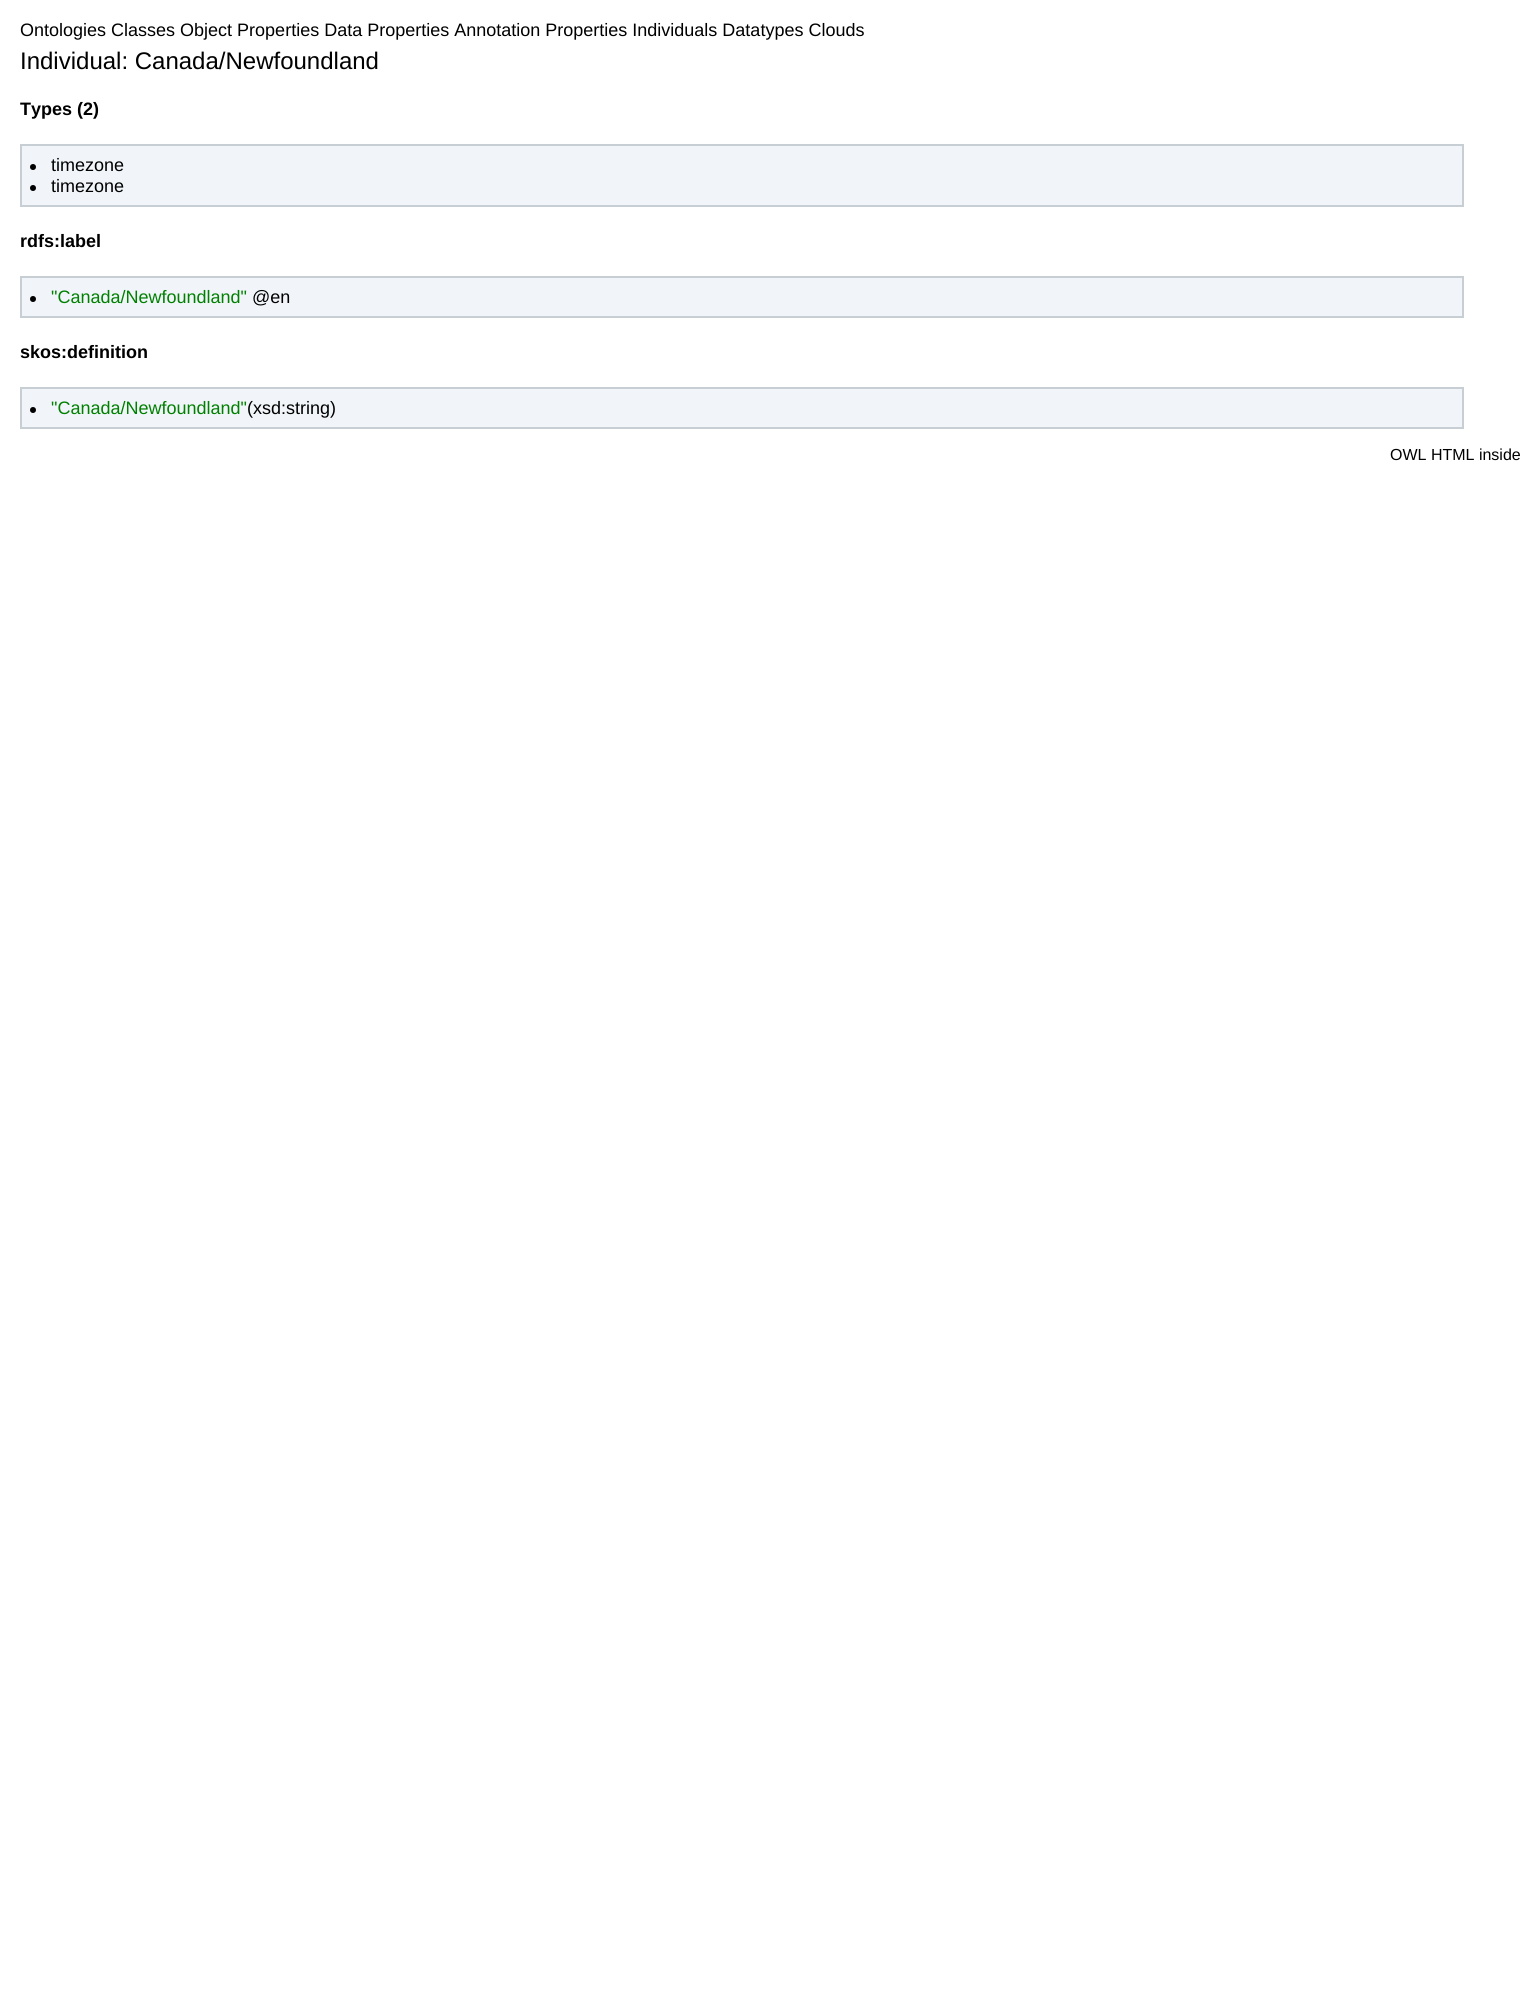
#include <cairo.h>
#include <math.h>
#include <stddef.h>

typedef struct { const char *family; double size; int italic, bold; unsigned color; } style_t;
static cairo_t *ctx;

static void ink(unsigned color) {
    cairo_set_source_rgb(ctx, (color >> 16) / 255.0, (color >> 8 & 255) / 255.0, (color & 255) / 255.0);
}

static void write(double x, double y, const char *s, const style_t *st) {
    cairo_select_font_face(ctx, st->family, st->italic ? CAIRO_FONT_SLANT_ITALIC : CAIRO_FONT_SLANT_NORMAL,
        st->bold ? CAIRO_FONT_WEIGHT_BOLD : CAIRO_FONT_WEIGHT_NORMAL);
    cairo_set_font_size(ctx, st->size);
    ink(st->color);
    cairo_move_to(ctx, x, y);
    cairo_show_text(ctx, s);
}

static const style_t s1 = {"Liberation Sans", 18, 0, 0, 0x000000};
static const style_t s2 = {"Liberation Sans", 24, 0, 0, 0x000000};
static const style_t s3 = {"Liberation Sans", 18, 0, 1, 0x000000};
static const style_t s4 = {"Liberation Sans", 18, 0, 0, 0x008000};
static const style_t s5 = {"Liberation Sans", 16, 0, 0, 0x000000};

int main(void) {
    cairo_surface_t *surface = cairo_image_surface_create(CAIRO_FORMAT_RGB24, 1540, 1998);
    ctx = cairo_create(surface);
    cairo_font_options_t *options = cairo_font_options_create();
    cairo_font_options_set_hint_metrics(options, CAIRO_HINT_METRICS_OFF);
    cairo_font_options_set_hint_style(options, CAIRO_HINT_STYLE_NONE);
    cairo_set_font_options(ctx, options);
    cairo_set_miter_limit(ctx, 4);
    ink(0xffffff);
    cairo_paint(ctx);
    write(20, 36, "Ontologies Classes Object Properties Data Properties Annotation Properties Individuals Datatypes Clouds", &s1);
    write(20, 69, "Individual: Canada/Newfoundland", &s2);
    write(20, 115, "Types (2)", &s3);
    ink(0xf1f5f9);
    cairo_rectangle(ctx, 21, 145, 1442, 61);
    cairo_fill_preserve(ctx);
    ink(0xc7cfd5);
    cairo_stroke(ctx);
    ink(0x000000);
    cairo_arc(ctx, 33, 167, 3, 0, 2 * M_PI);
    cairo_fill(ctx);
    write(51, 171, "timezone", &s1);
    cairo_new_path(ctx);
    cairo_arc(ctx, 33, 188, 3, 0, 2 * M_PI);
    cairo_fill(ctx);
    write(51, 192, "timezone", &s1);
    write(20, 247, "rdfs:label", &s3);
    ink(0xf1f5f9);
    cairo_rectangle(ctx, 21, 277, 1442, 40);
    cairo_fill_preserve(ctx);
    ink(0xc7cfd5);
    cairo_stroke(ctx);
    ink(0x000000);
    cairo_arc(ctx, 33, 299, 3, 0, 2 * M_PI);
    cairo_fill(ctx);
    write(51, 303, "\"Canada/Newfoundland\"", &s4);
    write(252, 303, "@en", &s1);
    write(20, 358, "skos:definition", &s3);
    ink(0xf1f5f9);
    cairo_rectangle(ctx, 21, 388, 1442, 40);
    cairo_fill_preserve(ctx);
    ink(0xc7cfd5);
    cairo_stroke(ctx);
    ink(0x000000);
    cairo_arc(ctx, 33, 410, 3, 0, 2 * M_PI);
    cairo_fill(ctx);
    write(51, 414, "\"Canada/Newfoundland\"", &s4);
    write(247, 414, "(xsd:string)", &s1);
    write(1390, 460, "OWL HTML inside", &s5);
    cairo_surface_write_to_png(surface, "screenshot.png");
    cairo_font_options_destroy(options);
    cairo_destroy(ctx);
    cairo_surface_destroy(surface);
    return 0;
}
